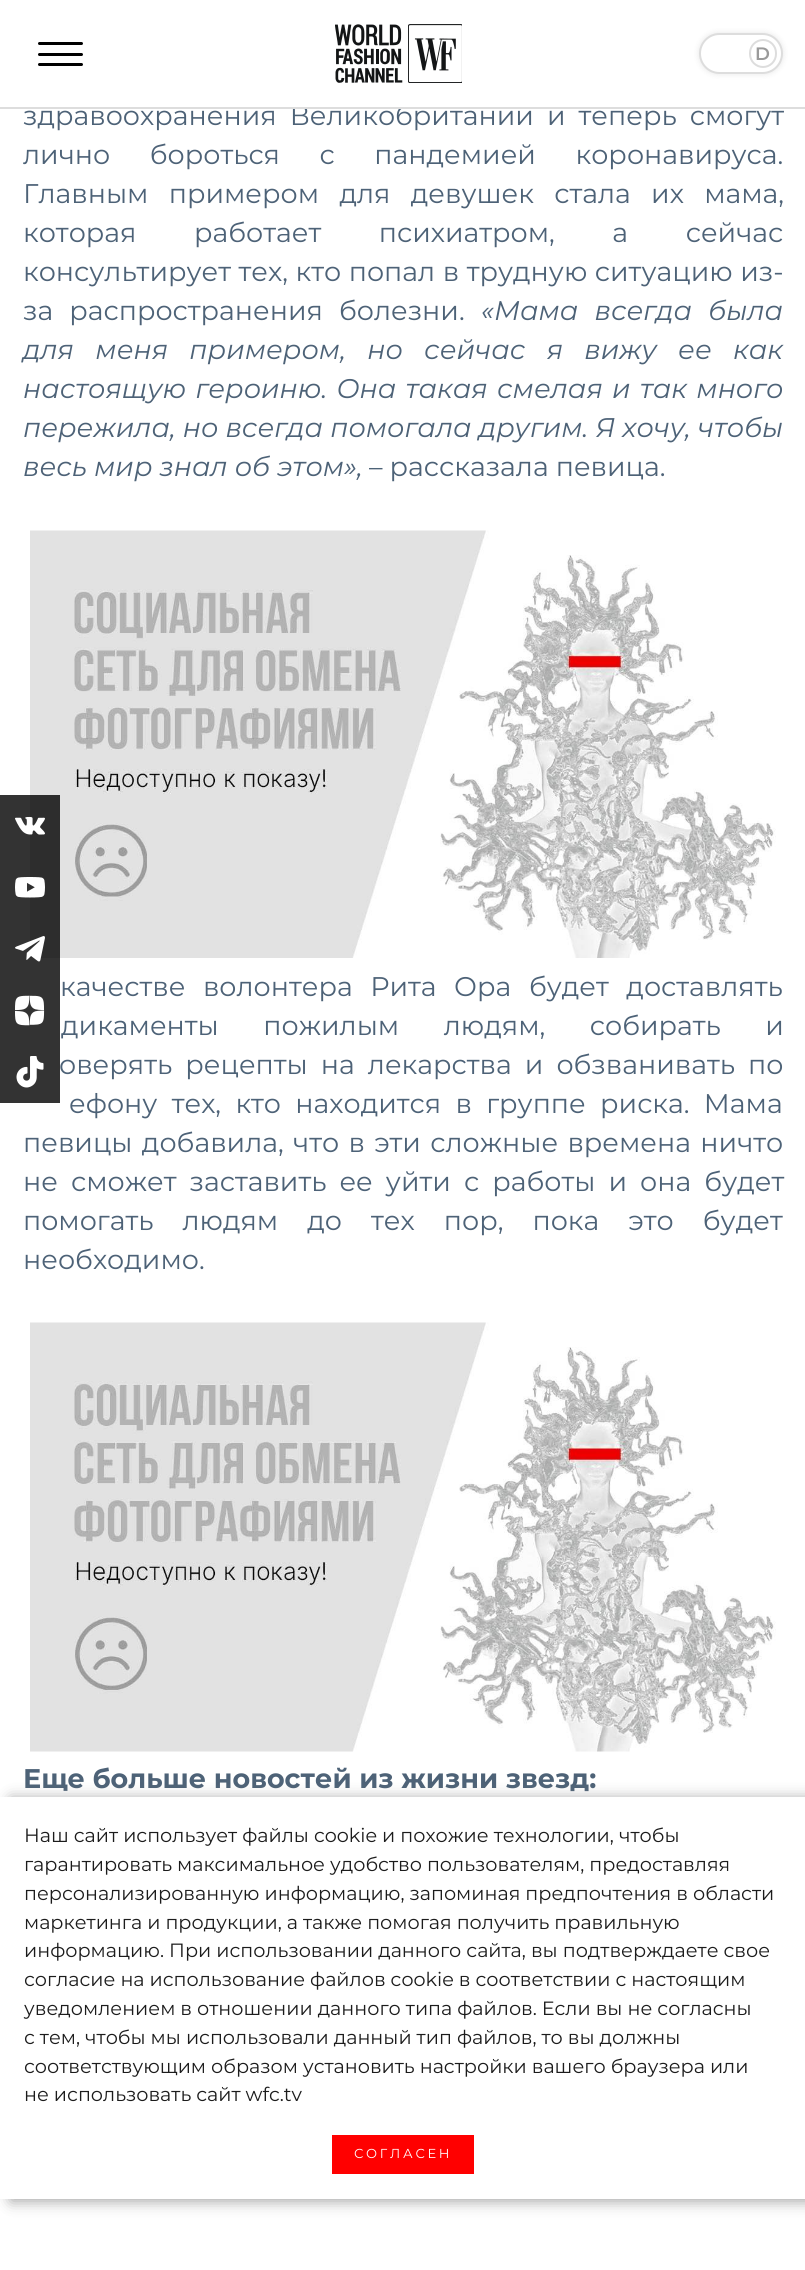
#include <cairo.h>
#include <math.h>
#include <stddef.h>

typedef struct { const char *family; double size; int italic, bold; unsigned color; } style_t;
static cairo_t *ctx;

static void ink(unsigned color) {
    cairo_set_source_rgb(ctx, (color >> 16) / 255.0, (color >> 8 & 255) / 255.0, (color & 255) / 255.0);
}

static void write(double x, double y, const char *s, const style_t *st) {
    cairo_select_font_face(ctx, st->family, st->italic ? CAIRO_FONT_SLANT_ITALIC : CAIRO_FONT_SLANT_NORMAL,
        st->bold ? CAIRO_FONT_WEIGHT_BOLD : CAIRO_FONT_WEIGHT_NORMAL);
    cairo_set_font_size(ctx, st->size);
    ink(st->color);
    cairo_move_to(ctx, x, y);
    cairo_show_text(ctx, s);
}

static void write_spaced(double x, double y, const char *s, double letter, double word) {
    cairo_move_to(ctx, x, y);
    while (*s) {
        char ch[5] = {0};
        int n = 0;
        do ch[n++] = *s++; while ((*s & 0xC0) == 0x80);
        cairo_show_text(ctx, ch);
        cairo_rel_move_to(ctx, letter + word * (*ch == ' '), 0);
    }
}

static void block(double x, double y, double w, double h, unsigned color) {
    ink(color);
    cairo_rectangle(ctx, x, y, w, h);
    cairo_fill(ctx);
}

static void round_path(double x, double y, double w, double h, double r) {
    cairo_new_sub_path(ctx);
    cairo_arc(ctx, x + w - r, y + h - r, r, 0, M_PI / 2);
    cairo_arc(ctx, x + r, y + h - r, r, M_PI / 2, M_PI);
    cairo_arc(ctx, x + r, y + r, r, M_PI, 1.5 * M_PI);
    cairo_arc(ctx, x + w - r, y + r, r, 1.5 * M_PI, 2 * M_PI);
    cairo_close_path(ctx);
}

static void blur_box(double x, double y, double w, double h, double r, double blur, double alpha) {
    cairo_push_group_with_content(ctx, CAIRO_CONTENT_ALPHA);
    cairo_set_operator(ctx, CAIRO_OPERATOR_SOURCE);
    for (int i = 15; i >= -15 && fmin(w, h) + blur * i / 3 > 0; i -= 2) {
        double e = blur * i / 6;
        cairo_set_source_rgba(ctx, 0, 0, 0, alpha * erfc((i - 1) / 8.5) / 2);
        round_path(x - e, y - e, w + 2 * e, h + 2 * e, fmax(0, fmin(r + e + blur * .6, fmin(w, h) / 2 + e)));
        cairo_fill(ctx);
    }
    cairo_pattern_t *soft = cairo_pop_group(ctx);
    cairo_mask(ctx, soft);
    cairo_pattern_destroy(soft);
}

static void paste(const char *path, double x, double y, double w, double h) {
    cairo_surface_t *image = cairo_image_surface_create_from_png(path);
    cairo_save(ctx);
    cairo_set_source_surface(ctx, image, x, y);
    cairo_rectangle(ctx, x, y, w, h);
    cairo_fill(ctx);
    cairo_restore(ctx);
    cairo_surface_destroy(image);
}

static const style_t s1 = {"Montserrat", 27, 1, 0, 0x4d6277};
static const style_t s2 = {"Montserrat", 27, 0, 0, 0x4d6277};
static const style_t s3 = {"Montserrat", 27, 0, 1, 0x4d6277};
static const style_t s4 = {"Montserrat", 19.2, 0, 0, 0x1c1c1c};

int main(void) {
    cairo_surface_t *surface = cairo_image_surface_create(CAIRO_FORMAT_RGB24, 805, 2270);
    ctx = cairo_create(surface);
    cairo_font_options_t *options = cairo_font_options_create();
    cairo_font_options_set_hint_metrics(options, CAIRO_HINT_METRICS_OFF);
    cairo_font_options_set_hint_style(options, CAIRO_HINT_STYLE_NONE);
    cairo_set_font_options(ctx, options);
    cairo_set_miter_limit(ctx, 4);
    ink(0xffffff);
    cairo_paint(ctx);
    cairo_select_font_face(ctx, "Montserrat", CAIRO_FONT_SLANT_NORMAL, CAIRO_FONT_WEIGHT_NORMAL);
    cairo_set_font_size(ctx, 27);
    ink(0x4d6277);
    write_spaced(23, 125, "здравоохранения Великобритании и теперь смогут", 0, 6);
    block(292, 104, 119, 3, 0xffffff);
    block(0, 107, 805, 2, 0xdddddd);
    ink(0x000000);
    round_path(38, 53, 45, 3, 1.5);
    cairo_fill(ctx);
    round_path(38, 42, 45, 3, 1.5);
    cairo_fill(ctx);
    round_path(38, 63, 45, 3, 1.5);
    cairo_fill(ctx);
    paste("pic1.png", 335, 24, 127, 59);
    ink(0x000000);
    blur_box(699, 33, 84, 41, 20.5, 3, 0.1);
    ink(0xffffff);
    round_path(700, 34, 82, 39, 19.5);
    cairo_fill_preserve(ctx);
    ink(0xdddddd);
    cairo_stroke(ctx);
    round_path(750, 40, 26, 27, 13);
    cairo_stroke(ctx);
    cairo_select_font_face(ctx, "Montserrat SemiBold", CAIRO_FONT_SLANT_NORMAL, CAIRO_FONT_WEIGHT_NORMAL);
    cairo_set_font_size(ctx, 18);
    ink(0x9a9a9a);
    write_spaced(755, 60, "D", 3, 0);
    cairo_select_font_face(ctx, "Montserrat", CAIRO_FONT_SLANT_NORMAL, CAIRO_FONT_WEIGHT_NORMAL);
    cairo_set_font_size(ctx, 27);
    ink(0x4d6277);
    write_spaced(23, 164, "лично бороться с пандемией коронавируса.", 0, 32.5);
    write_spaced(23, 203, "Главным примером для девушек стала их мама,", 0, 13.25);
    write_spaced(23, 242, "которая работает психиатром, а сейчас", 0, 50.5);
    write_spaced(23, 281, "консультирует тех, кто попал в трудную ситуацию из-", 0, 0.5);
    write_spaced(23, 320, "за распространения болезни.", 0, 9);
    cairo_select_font_face(ctx, "Montserrat", CAIRO_FONT_SLANT_ITALIC, CAIRO_FONT_WEIGHT_NORMAL);
    write_spaced(481, 320, "«Мама всегда была", 0, 9);
    write_spaced(23, 359, "для меня примером, но сейчас я вижу ее как", 0, 14.25);
    write_spaced(23, 398, "настоящую героиню. Она такая смелая и так много", 0, 2.25);
    write(23, 437, "пережила, но всегда помогала другим. Я хочу, чтобы", &s1);
    write(23, 476, "весь мир знал об этом»,", &s1);
    write(369, 476, "– рассказала певица.", &s2);
    paste("pic2.png", 30, 530, 746, 428);
    write_spaced(60, 996, "качестве волонтера Рита Ора будет доставлять", 0, 10.5);
    write_spaced(61, 1035, "дикаменты пожилым людям, собирать и", 0, 37.5);
    write_spaced(59, 1074, "оверять рецепты на лекарства и обзванивать по", 0, 6);
    write_spaced(69, 1113, "ефону тех, кто находится в группе риска. Мама", 0, 7.25);
    write_spaced(23, 1152, "певицы добавила, что в эти сложные времена ничто", 0, 2.25);
    write_spaced(23, 1191, "не сможет заставить ее уйти с работы и она будет", 0, 6);
    write_spaced(23, 1230, "помогать людям до тех пор, пока это будет", 0, 22);
    write(23, 1269, "необходимо.", &s2);
    paste("pic3.png", 30, 1322, 746, 430);
    write(23, 1788, "Еще больше новостей из жизни звезд:", &s3);
    cairo_set_source_rgba(ctx, 0, 0, 0, 0.8);
    cairo_rectangle(ctx, 0, 795, 60, 308);
    cairo_fill(ctx);
    paste("pic4.png", 15, 816, 30, 19);
    paste("pic5.png", 15, 877, 30, 21);
    paste("pic6.png", 15, 936, 30, 26);
    paste("pic7.png", 15, 995, 30, 31);
    paste("pic8.png", 16, 1056, 28, 32);
    ink(0x808080);
    blur_box(11, 1799, 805, 402, 0, 7.5, 0.75);
    block(0, 1797, 805, 402, 0xffffff);
    write(24, 1842, "Наш сайт использует файлы cookie и похожие технологии, чтобы", &s4);
    write(24, 1871, "гарантировать максимальное удобство пользователям, предоставляя", &s4);
    write(24, 1900, "персонализированную информацию, запоминая предпочтения в области", &s4);
    write(24, 1929, "маркетинга и продукции, а также помогая получить правильную", &s4);
    write(24, 1957, "информацию. При использовании данного сайта, вы подтверждаете свое", &s4);
    write(24, 1986, "согласие на использование файлов cookie в соответствии с настоящим", &s4);
    write(24, 2015, "уведомлением в отношении данного типа файлов. Если вы не согласны", &s4);
    write(24, 2044, "с тем, чтобы мы использовали данный тип файлов, то вы должны", &s4);
    write(24, 2073, "соответствующим образом установить настройки вашего браузера или", &s4);
    write(24, 2101, "не использовать сайт wfc.tv", &s4);
    block(332, 2135, 142, 39, 0xff0000);
    cairo_set_font_size(ctx, 13);
    ink(0xffffff);
    write_spaced(354, 2158, "СОГЛАСЕН", 2.75, 0);
    cairo_surface_write_to_png(surface, "screenshot.png");
    cairo_font_options_destroy(options);
    cairo_destroy(ctx);
    cairo_surface_destroy(surface);
    return 0;
}
